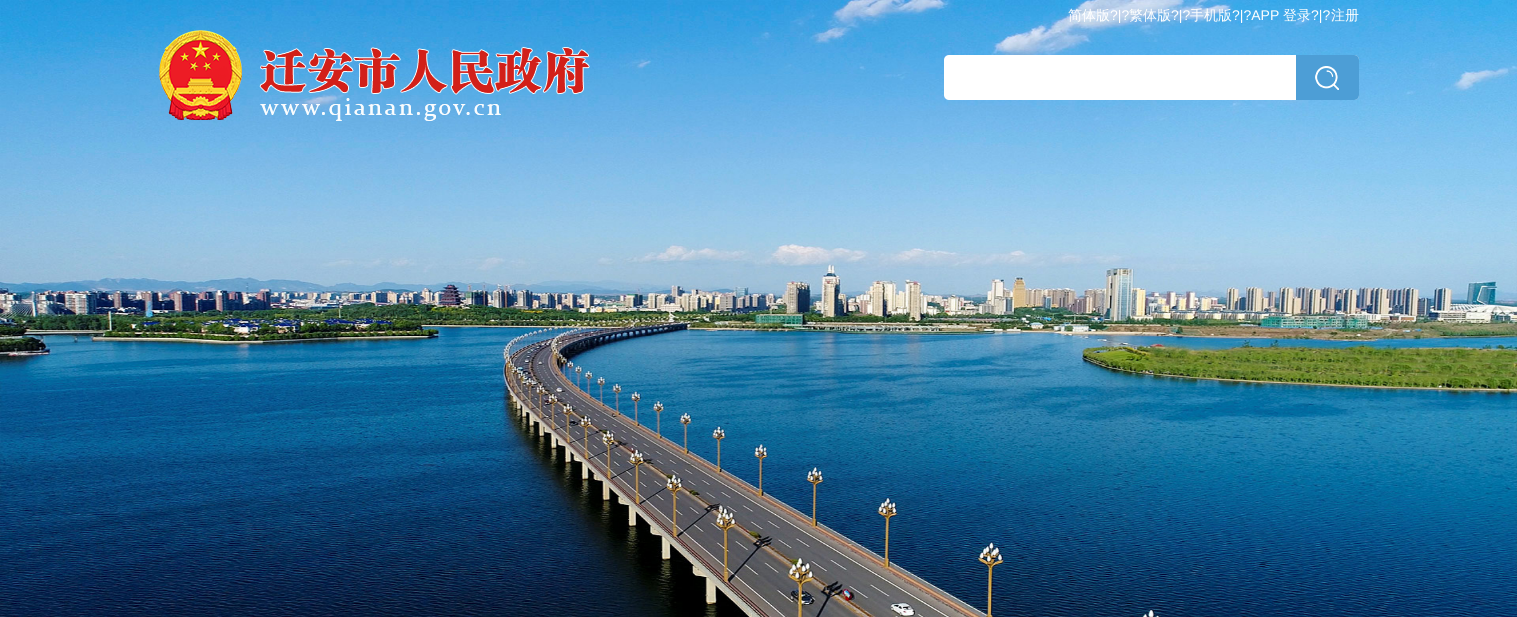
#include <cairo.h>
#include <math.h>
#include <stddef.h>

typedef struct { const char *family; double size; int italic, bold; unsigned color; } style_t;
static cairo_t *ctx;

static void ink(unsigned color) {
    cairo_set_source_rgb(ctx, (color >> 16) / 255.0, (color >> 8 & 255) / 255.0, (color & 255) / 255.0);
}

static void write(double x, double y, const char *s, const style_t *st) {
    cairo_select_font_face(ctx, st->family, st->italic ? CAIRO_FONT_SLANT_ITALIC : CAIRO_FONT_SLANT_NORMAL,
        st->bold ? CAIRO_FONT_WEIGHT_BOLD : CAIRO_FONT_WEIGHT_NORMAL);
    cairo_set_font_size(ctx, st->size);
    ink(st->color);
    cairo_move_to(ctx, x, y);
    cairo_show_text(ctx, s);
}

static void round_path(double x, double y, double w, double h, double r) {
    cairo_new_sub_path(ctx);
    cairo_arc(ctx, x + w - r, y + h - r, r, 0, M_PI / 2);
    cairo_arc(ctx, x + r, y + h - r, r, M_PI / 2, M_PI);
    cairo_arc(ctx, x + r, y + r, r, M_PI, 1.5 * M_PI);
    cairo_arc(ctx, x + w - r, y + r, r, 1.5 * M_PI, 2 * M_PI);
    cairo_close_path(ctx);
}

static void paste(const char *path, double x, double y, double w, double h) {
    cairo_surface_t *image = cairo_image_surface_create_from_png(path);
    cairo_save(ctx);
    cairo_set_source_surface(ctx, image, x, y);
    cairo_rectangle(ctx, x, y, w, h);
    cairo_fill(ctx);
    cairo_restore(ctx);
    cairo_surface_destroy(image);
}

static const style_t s1 = {"WenQuanYi Zen Hei Medium", 14, 0, 0, 0xffffff};
static const style_t s2 = {"Liberation Sans", 14, 0, 0, 0xffffff};

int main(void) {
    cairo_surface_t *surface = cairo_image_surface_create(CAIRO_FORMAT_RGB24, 1517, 617);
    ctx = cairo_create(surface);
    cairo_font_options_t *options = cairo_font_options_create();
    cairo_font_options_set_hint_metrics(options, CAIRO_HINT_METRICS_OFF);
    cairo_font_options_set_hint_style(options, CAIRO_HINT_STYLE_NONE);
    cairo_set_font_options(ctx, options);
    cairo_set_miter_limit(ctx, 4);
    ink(0xffffff);
    cairo_paint(ctx);
    paste("pic1.png", 0, 0, 1517, 617);
    write(1068, 20, "简体版", &s1);
    write(1110, 20, "?|?", &s2);
    write(1129, 20, "繁体版", &s1);
    write(1171, 20, "?|?", &s2);
    write(1190, 20, "手机版", &s1);
    write(1232, 20, "?|?APP", &s2);
    write(1283, 20, "登录", &s1);
    write(1311, 20, "?|?", &s2);
    write(1331, 20, "注册", &s1);
    paste("pic2.png", 159, 30, 431, 91);
    round_path(944, 55, 415, 45, 5);
    cairo_fill(ctx);
    ink(0x4d9ed6);
    cairo_new_path(ctx);
    cairo_move_to(ctx, 1296, 55);
    cairo_line_to(ctx, 1354, 55);
    cairo_curve_to(ctx, 1357, 55, 1359, 57, 1359, 60);
    cairo_line_to(ctx, 1359, 95);
    cairo_curve_to(ctx, 1359, 98, 1357, 100, 1354, 100);
    cairo_line_to(ctx, 1296, 100);
    cairo_close_path(ctx);
    cairo_fill(ctx);
    paste("pic3.png", 1315, 66, 24, 24);
    cairo_surface_write_to_png(surface, "screenshot.png");
    cairo_font_options_destroy(options);
    cairo_destroy(ctx);
    cairo_surface_destroy(surface);
    return 0;
}
